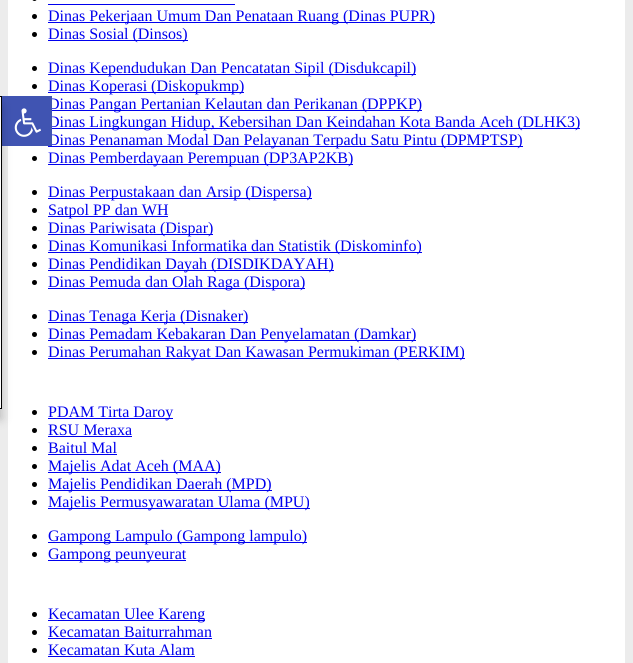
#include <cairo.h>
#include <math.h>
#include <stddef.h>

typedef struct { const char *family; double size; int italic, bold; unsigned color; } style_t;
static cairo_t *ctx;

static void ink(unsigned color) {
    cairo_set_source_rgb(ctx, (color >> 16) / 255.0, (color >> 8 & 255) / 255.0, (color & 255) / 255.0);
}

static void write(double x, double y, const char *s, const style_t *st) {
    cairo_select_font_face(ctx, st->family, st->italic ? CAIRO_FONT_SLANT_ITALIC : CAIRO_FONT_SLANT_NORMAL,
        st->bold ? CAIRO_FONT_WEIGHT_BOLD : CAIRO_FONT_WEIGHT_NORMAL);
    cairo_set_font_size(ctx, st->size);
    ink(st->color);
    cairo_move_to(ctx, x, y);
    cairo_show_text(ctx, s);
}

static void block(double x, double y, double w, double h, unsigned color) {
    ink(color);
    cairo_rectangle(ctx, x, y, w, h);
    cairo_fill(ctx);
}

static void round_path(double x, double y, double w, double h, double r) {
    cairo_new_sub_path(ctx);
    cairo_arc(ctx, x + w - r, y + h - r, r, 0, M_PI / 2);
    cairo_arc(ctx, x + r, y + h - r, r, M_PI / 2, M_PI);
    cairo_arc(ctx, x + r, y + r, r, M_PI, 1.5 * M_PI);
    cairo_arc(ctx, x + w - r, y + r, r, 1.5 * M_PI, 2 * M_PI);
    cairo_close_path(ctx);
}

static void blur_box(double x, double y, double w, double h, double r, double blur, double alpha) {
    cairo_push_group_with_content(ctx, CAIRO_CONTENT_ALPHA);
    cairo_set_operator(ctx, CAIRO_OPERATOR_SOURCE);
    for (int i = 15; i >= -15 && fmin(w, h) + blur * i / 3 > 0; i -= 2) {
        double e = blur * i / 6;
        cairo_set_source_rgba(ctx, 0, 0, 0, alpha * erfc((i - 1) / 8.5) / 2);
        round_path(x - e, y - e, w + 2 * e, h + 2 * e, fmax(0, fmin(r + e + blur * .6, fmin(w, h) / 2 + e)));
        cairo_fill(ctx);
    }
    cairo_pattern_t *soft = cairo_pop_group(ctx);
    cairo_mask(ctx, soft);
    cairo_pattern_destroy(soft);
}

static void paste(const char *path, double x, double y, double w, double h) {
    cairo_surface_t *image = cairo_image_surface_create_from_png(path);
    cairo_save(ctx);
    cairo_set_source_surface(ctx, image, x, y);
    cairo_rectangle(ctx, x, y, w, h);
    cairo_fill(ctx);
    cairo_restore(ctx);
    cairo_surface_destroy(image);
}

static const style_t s1 = {"Liberation Serif", 16, 0, 0, 0x0000ee};

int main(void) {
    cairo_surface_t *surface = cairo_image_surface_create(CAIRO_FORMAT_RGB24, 633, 663);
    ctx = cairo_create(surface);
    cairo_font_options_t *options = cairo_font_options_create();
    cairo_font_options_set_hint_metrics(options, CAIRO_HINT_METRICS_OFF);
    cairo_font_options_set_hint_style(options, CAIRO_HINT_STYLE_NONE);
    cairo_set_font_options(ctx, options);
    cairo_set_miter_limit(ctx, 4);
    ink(0xececec);
    cairo_paint(ctx);
    block(8, 0, 617, 663, 0xffffff);
    block(48, 110, 374, 1, 0x0000ee);
    write(48, 109, "Dinas Pangan Pertanian Kelautan dan Perikanan (DPPKP)", &s1);
    block(48, 128, 532, 1, 0x0000ee);
    write(48, 127, "Dinas Lingkungan Hidup, Kebersihan Dan Keindahan Kota Banda Aceh (DLHK3)", &s1);
    block(48, 146, 475, 1, 0x0000ee);
    write(48, 145, "Dinas Penanaman Modal Dan Pelayanan Terpadu Satu Pintu (DPMPTSP)", &s1);
    block(2, 96, 50, 50, 0x4054b2);
    ink(0x000000);
    blur_box(-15, 106, 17, 313, 0, 5, 0.2);
    ink(0xffffff);
    cairo_rectangle(ctx, -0.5, 96.5, 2, 312);
    cairo_fill_preserve(ctx);
    ink(0x000000);
    cairo_set_line_width(ctx, 1);
    cairo_stroke(ctx);
    paste("pic1.png", 14, 108, 27, 29);
    round_path(32, -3, 5, 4, 2.5);
    cairo_fill(ctx);
    block(48, 4, 187, 1, 0x0000ee);
    ink(0x000000);
    cairo_arc(ctx, 34.5, 16.5, 2.5, 0, 2 * M_PI);
    cairo_fill(ctx);
    block(48, 22, 387, 1, 0x0000ee);
    write(48, 21, "Dinas Pekerjaan Umum Dan Penataan Ruang (Dinas PUPR)", &s1);
    ink(0x000000);
    cairo_new_path(ctx);
    cairo_arc(ctx, 34.5, 34.5, 2.5, 0, 2 * M_PI);
    cairo_fill(ctx);
    block(48, 40, 140, 1, 0x0000ee);
    write(48, 39, "Dinas Sosial (Dinsos)", &s1);
    ink(0x000000);
    cairo_new_path(ctx);
    cairo_arc(ctx, 34.5, 68.5, 2.5, 0, 2 * M_PI);
    cairo_fill(ctx);
    block(48, 74, 368, 1, 0x0000ee);
    write(48, 73, "Dinas Kependudukan Dan Pencatatan Sipil (Disdukcapil)", &s1);
    ink(0x000000);
    cairo_new_path(ctx);
    cairo_arc(ctx, 34.5, 86.5, 2.5, 0, 2 * M_PI);
    cairo_fill(ctx);
    block(48, 92, 196, 1, 0x0000ee);
    write(48, 91, "Dinas Koperasi (Diskopukmp)", &s1);
    ink(0x000000);
    cairo_new_path(ctx);
    cairo_arc(ctx, 34.5, 158.5, 2.5, 0, 2 * M_PI);
    cairo_fill(ctx);
    block(48, 164, 305, 1, 0x0000ee);
    write(48, 163, "Dinas Pemberdayaan Perempuan (DP3AP2KB)", &s1);
    ink(0x000000);
    cairo_new_path(ctx);
    cairo_arc(ctx, 34.5, 192.5, 2.5, 0, 2 * M_PI);
    cairo_fill(ctx);
    block(48, 198, 264, 1, 0x0000ee);
    write(48, 197, "Dinas Perpustakaan dan Arsip (Dispersa)", &s1);
    ink(0x000000);
    cairo_new_path(ctx);
    cairo_arc(ctx, 34.5, 210.5, 2.5, 0, 2 * M_PI);
    cairo_fill(ctx);
    block(48, 216, 120, 1, 0x0000ee);
    write(48, 215, "Satpol PP dan WH", &s1);
    ink(0x000000);
    cairo_new_path(ctx);
    cairo_arc(ctx, 34.5, 228.5, 2.5, 0, 2 * M_PI);
    cairo_fill(ctx);
    block(48, 234, 165, 1, 0x0000ee);
    write(48, 233, "Dinas Pariwisata (Dispar)", &s1);
    ink(0x000000);
    cairo_new_path(ctx);
    cairo_arc(ctx, 34.5, 246.5, 2.5, 0, 2 * M_PI);
    cairo_fill(ctx);
    block(48, 252, 374, 1, 0x0000ee);
    write(48, 251, "Dinas Komunikasi Informatika dan Statistik (Diskominfo)", &s1);
    ink(0x000000);
    cairo_new_path(ctx);
    cairo_arc(ctx, 34.5, 264.5, 2.5, 0, 2 * M_PI);
    cairo_fill(ctx);
    block(48, 270, 286, 1, 0x0000ee);
    write(48, 269, "Dinas Pendidikan Dayah (DISDIKDAYAH)", &s1);
    ink(0x000000);
    cairo_new_path(ctx);
    cairo_arc(ctx, 34.5, 282.5, 2.5, 0, 2 * M_PI);
    cairo_fill(ctx);
    block(48, 288, 257, 1, 0x0000ee);
    write(48, 287, "Dinas Pemuda dan Olah Raga (Dispora)", &s1);
    ink(0x000000);
    cairo_new_path(ctx);
    cairo_arc(ctx, 34.5, 316.5, 2.5, 0, 2 * M_PI);
    cairo_fill(ctx);
    block(48, 322, 200, 1, 0x0000ee);
    write(48, 321, "Dinas Tenaga Kerja (Disnaker)", &s1);
    ink(0x000000);
    cairo_new_path(ctx);
    cairo_arc(ctx, 34.5, 334.5, 2.5, 0, 2 * M_PI);
    cairo_fill(ctx);
    block(48, 340, 368, 1, 0x0000ee);
    write(48, 339, "Dinas Pemadam Kebakaran Dan Penyelamatan (Damkar)", &s1);
    ink(0x000000);
    cairo_new_path(ctx);
    cairo_arc(ctx, 34.5, 352.5, 2.5, 0, 2 * M_PI);
    cairo_fill(ctx);
    block(48, 358, 417, 1, 0x0000ee);
    write(48, 357, "Dinas Perumahan Rakyat Dan Kawasan Permukiman (PERKIM)", &s1);
    ink(0x000000);
    cairo_new_path(ctx);
    cairo_arc(ctx, 34.5, 412.5, 2.5, 0, 2 * M_PI);
    cairo_fill(ctx);
    block(48, 418, 125, 1, 0x0000ee);
    write(48, 417, "PDAM Tirta Daroy", &s1);
    ink(0x000000);
    cairo_new_path(ctx);
    cairo_arc(ctx, 34.5, 430.5, 2.5, 0, 2 * M_PI);
    cairo_fill(ctx);
    write(48, 435, "RSU Meraxa", &s1);
    block(48, 436, 84, 1, 0x0000ee);
    ink(0x000000);
    cairo_new_path(ctx);
    cairo_arc(ctx, 34.5, 448.5, 2.5, 0, 2 * M_PI);
    cairo_fill(ctx);
    write(48, 453, "Baitul Mal", &s1);
    block(48, 454, 69, 1, 0x0000ee);
    ink(0x000000);
    cairo_new_path(ctx);
    cairo_arc(ctx, 34.5, 466.5, 2.5, 0, 2 * M_PI);
    cairo_fill(ctx);
    block(48, 472, 173, 1, 0x0000ee);
    write(48, 471, "Majelis Adat Aceh (MAA)", &s1);
    ink(0x000000);
    cairo_new_path(ctx);
    cairo_arc(ctx, 34.5, 484.5, 2.5, 0, 2 * M_PI);
    cairo_fill(ctx);
    block(48, 490, 224, 1, 0x0000ee);
    write(48, 489, "Majelis Pendidikan Daerah (MPD)", &s1);
    ink(0x000000);
    cairo_new_path(ctx);
    cairo_arc(ctx, 34.5, 502.5, 2.5, 0, 2 * M_PI);
    cairo_fill(ctx);
    block(48, 508, 262, 1, 0x0000ee);
    write(48, 507, "Majelis Permusyawaratan Ulama (MPU)", &s1);
    ink(0x000000);
    cairo_new_path(ctx);
    cairo_arc(ctx, 34.5, 536.5, 2.5, 0, 2 * M_PI);
    cairo_fill(ctx);
    block(48, 542, 259, 1, 0x0000ee);
    write(48, 541, "Gampong Lampulo (Gampong lampulo)", &s1);
    ink(0x000000);
    cairo_new_path(ctx);
    cairo_arc(ctx, 34.5, 554.5, 2.5, 0, 2 * M_PI);
    cairo_fill(ctx);
    block(48, 560, 138, 1, 0x0000ee);
    write(48, 559, "Gampong peunyeurat", &s1);
    ink(0x000000);
    cairo_new_path(ctx);
    cairo_arc(ctx, 34.5, 614.5, 2.5, 0, 2 * M_PI);
    cairo_fill(ctx);
    block(48, 620, 157, 1, 0x0000ee);
    write(48, 619, "Kecamatan Ulee Kareng", &s1);
    ink(0x000000);
    cairo_new_path(ctx);
    cairo_arc(ctx, 34.5, 632.5, 2.5, 0, 2 * M_PI);
    cairo_fill(ctx);
    write(48, 637, "Kecamatan Baiturrahman", &s1);
    block(48, 638, 164, 1, 0x0000ee);
    ink(0x000000);
    cairo_new_path(ctx);
    cairo_arc(ctx, 34.5, 650.5, 2.5, 0, 2 * M_PI);
    cairo_fill(ctx);
    write(48, 655, "Kecamatan Kuta Alam", &s1);
    block(48, 656, 147, 1, 0x0000ee);
    cairo_surface_write_to_png(surface, "screenshot.png");
    cairo_font_options_destroy(options);
    cairo_destroy(ctx);
    cairo_surface_destroy(surface);
    return 0;
}
